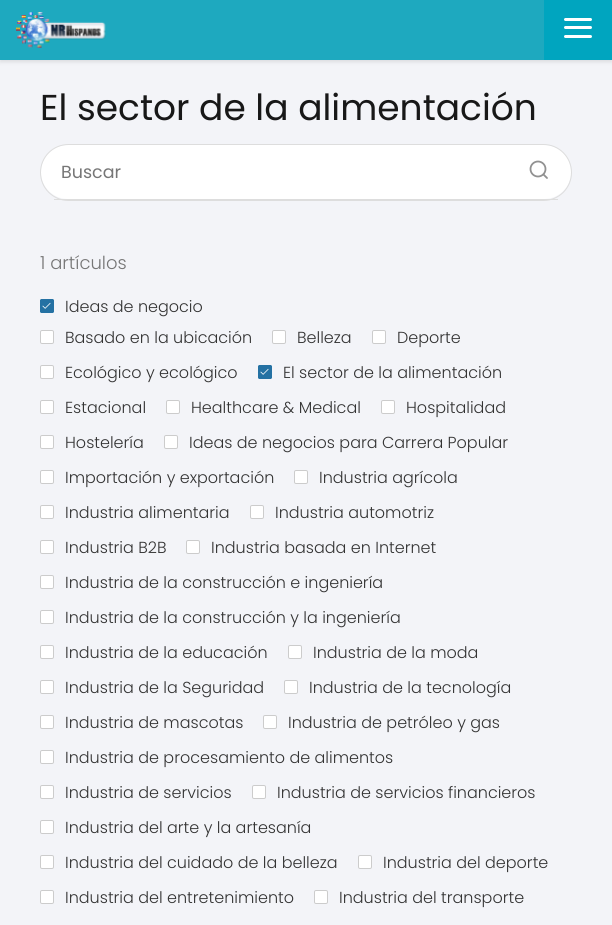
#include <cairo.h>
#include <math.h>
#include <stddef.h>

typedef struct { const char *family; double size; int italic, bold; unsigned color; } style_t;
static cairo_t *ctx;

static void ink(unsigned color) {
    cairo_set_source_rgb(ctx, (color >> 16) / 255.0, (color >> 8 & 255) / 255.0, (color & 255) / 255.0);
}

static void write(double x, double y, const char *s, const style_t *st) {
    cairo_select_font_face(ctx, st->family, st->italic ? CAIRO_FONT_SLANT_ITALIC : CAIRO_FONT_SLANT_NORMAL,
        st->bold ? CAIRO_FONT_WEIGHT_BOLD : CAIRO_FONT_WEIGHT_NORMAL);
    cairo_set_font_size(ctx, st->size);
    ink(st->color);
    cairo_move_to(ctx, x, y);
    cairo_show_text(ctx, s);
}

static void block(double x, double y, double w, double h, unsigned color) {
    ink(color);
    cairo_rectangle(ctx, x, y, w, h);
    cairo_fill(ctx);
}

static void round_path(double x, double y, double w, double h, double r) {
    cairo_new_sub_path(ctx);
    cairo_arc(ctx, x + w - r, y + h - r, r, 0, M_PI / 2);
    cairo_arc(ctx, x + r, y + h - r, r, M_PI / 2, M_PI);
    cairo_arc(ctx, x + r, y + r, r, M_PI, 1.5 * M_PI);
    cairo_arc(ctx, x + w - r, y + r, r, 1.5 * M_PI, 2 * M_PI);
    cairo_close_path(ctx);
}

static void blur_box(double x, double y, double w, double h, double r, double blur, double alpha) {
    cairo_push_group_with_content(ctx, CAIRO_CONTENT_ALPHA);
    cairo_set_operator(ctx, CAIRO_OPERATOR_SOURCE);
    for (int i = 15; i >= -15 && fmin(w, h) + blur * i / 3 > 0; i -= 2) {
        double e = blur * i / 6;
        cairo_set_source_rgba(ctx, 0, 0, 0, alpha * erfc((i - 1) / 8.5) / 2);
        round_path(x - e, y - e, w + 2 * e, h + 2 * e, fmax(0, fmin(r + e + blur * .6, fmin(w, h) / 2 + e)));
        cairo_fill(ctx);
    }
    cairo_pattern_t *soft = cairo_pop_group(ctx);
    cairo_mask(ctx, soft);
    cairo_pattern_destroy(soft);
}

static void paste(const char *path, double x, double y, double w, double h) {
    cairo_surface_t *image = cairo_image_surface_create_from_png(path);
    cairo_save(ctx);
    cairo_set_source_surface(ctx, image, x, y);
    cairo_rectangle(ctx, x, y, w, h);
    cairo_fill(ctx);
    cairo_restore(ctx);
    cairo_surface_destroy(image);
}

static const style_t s1 = {"Poppins", 36, 0, 0, 0x181818};
static const style_t s2 = {"Poppins", 17.5, 0, 0, 0x767676};
static const style_t s3 = {"Poppins Light", 18, 0, 0, 0x767676};
static const style_t s4 = {"Poppins Light", 16, 0, 0, 0x333333};

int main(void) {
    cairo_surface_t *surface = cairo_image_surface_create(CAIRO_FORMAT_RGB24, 612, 925);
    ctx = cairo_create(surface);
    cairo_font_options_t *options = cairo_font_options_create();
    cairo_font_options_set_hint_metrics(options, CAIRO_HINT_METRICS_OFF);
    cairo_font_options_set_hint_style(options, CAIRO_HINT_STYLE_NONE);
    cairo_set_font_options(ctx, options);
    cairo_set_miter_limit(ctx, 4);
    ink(0xf3f4f8);
    cairo_paint(ctx);
    ink(0x000000);
    blur_box(0, 2, 612, 60, 0, 2, 0.1);
    block(544, 0, 68, 60, 0x00a5bf);
    ink(0xffffff);
    round_path(564, 18, 28, 3, 1.5);
    cairo_fill(ctx);
    round_path(564, 26, 28, 3, 1.5);
    cairo_fill(ctx);
    round_path(564, 35, 28, 3, 1.5);
    cairo_fill(ctx);
    block(0, 0, 544, 60, 0x1ea9bf);
    paste("pic1.png", 16, 12, 90, 36);
    write(40, 120, "El sector de la alimentación", &s1);
    ink(0xffffff);
    cairo_new_path(ctx);
    cairo_move_to(ctx, 68, 145);
    cairo_line_to(ctx, 544, 145);
    cairo_curve_to(ctx, 559, 145, 571, 157, 571, 172);
    cairo_curve_to(ctx, 571, 187, 559, 199, 544, 199);
    cairo_line_to(ctx, 68, 199);
    cairo_curve_to(ctx, 53, 199, 41, 187, 41, 172);
    cairo_curve_to(ctx, 41, 157, 53, 145, 68, 145);
    cairo_close_path(ctx);
    cairo_fill(ctx);
    round_path(40.5, 144.5, 531, 56, 28);
    ink(0xdddddd);
    cairo_set_line_width(ctx, 1);
    cairo_stroke(ctx);
    block(54, 199, 504, 1, 0xdddddd);
    write(61, 178, "Buscar", &s2);
    cairo_new_path(ctx);
    cairo_arc(ctx, 538, 169, 7.5, 0, 2 * M_PI);
    ink(0x919191);
    cairo_set_line_width(ctx, 1.8);
    cairo_stroke(ctx);
    cairo_new_path(ctx);
    cairo_move_to(ctx, 547, 178);
    cairo_line_to(ctx, 543.5, 174.5);
    cairo_set_line_cap(ctx, CAIRO_LINE_CAP_ROUND);
    cairo_set_line_join(ctx, CAIRO_LINE_JOIN_ROUND);
    cairo_stroke(ctx);
    write(40, 269, "1 artículos", &s3);
    ink(0x2471a3);
    round_path(40, 299, 14, 14, 2);
    cairo_fill(ctx);
    paste("pic2.png", 42, 302, 9, 7);
    round_path(40.5, 299.5, 13, 13, 1.5);
    cairo_set_line_width(ctx, 1);
    cairo_set_line_cap(ctx, CAIRO_LINE_CAP_BUTT);
    cairo_set_line_join(ctx, CAIRO_LINE_JOIN_MITER);
    cairo_stroke(ctx);
    write(65, 312, "Ideas de negocio", &s4);
    ink(0xffffff);
    round_path(40.5, 330.5, 13, 13, 1.5);
    cairo_fill_preserve(ctx);
    ink(0xcccccc);
    cairo_stroke(ctx);
    write(65, 343, "Basado en la ubicación", &s4);
    ink(0xffffff);
    round_path(272.5, 330.5, 13, 13, 1.5);
    cairo_fill_preserve(ctx);
    ink(0xcccccc);
    cairo_stroke(ctx);
    write(297, 343, "Belleza", &s4);
    ink(0xffffff);
    round_path(372.5, 330.5, 13, 13, 1.5);
    cairo_fill_preserve(ctx);
    ink(0xcccccc);
    cairo_stroke(ctx);
    write(397, 343, "Deporte", &s4);
    ink(0xffffff);
    round_path(40.5, 365.5, 13, 13, 1.5);
    cairo_fill_preserve(ctx);
    ink(0xcccccc);
    cairo_stroke(ctx);
    write(65, 378, "Ecológico y ecológico", &s4);
    ink(0x2471a3);
    round_path(258, 365, 14, 14, 2);
    cairo_fill(ctx);
    paste("pic2.png", 260, 368, 9, 7);
    round_path(258.5, 365.5, 13, 13, 1.5);
    cairo_stroke(ctx);
    write(283, 378, "El sector de la alimentación", &s4);
    ink(0xffffff);
    round_path(40.5, 400.5, 13, 13, 1.5);
    cairo_fill_preserve(ctx);
    ink(0xcccccc);
    cairo_stroke(ctx);
    write(65, 413, "Estacional", &s4);
    ink(0xffffff);
    round_path(166.5, 400.5, 13, 13, 1.5);
    cairo_fill_preserve(ctx);
    ink(0xcccccc);
    cairo_stroke(ctx);
    write(191, 413, "Healthcare & Medical", &s4);
    ink(0xffffff);
    round_path(381.5, 400.5, 13, 13, 1.5);
    cairo_fill_preserve(ctx);
    ink(0xcccccc);
    cairo_stroke(ctx);
    write(406, 413, "Hospitalidad", &s4);
    ink(0xffffff);
    round_path(40.5, 435.5, 13, 13, 1.5);
    cairo_fill_preserve(ctx);
    ink(0xcccccc);
    cairo_stroke(ctx);
    write(65, 448, "Hostelería", &s4);
    ink(0xffffff);
    round_path(164.5, 435.5, 13, 13, 1.5);
    cairo_fill_preserve(ctx);
    ink(0xcccccc);
    cairo_stroke(ctx);
    write(189, 448, "Ideas de negocios para Carrera Popular", &s4);
    ink(0xffffff);
    round_path(40.5, 470.5, 13, 13, 1.5);
    cairo_fill_preserve(ctx);
    ink(0xcccccc);
    cairo_stroke(ctx);
    write(65, 483, "Importación y exportación", &s4);
    ink(0xffffff);
    round_path(294.5, 470.5, 13, 13, 1.5);
    cairo_fill_preserve(ctx);
    ink(0xcccccc);
    cairo_stroke(ctx);
    write(319, 483, "Industria agrícola", &s4);
    ink(0xffffff);
    round_path(40.5, 505.5, 13, 13, 1.5);
    cairo_fill_preserve(ctx);
    ink(0xcccccc);
    cairo_stroke(ctx);
    write(65, 518, "Industria alimentaria", &s4);
    ink(0xffffff);
    round_path(250.5, 505.5, 13, 13, 1.5);
    cairo_fill_preserve(ctx);
    ink(0xcccccc);
    cairo_stroke(ctx);
    write(275, 518, "Industria automotriz", &s4);
    ink(0xffffff);
    round_path(40.5, 540.5, 13, 13, 1.5);
    cairo_fill_preserve(ctx);
    ink(0xcccccc);
    cairo_stroke(ctx);
    write(65, 553, "Industria B2B", &s4);
    ink(0xffffff);
    round_path(186.5, 540.5, 13, 13, 1.5);
    cairo_fill_preserve(ctx);
    ink(0xcccccc);
    cairo_stroke(ctx);
    write(211, 553, "Industria basada en Internet", &s4);
    ink(0xffffff);
    round_path(40.5, 575.5, 13, 13, 1.5);
    cairo_fill_preserve(ctx);
    ink(0xcccccc);
    cairo_stroke(ctx);
    write(65, 588, "Industria de la construcción e ingeniería", &s4);
    ink(0xffffff);
    round_path(40.5, 610.5, 13, 13, 1.5);
    cairo_fill_preserve(ctx);
    ink(0xcccccc);
    cairo_stroke(ctx);
    write(65, 623, "Industria de la construcción y la ingeniería", &s4);
    ink(0xffffff);
    round_path(40.5, 645.5, 13, 13, 1.5);
    cairo_fill_preserve(ctx);
    ink(0xcccccc);
    cairo_stroke(ctx);
    write(65, 658, "Industria de la educación", &s4);
    ink(0xffffff);
    round_path(288.5, 645.5, 13, 13, 1.5);
    cairo_fill_preserve(ctx);
    ink(0xcccccc);
    cairo_stroke(ctx);
    write(313, 658, "Industria de la moda", &s4);
    ink(0xffffff);
    round_path(40.5, 680.5, 13, 13, 1.5);
    cairo_fill_preserve(ctx);
    ink(0xcccccc);
    cairo_stroke(ctx);
    write(65, 693, "Industria de la Seguridad", &s4);
    ink(0xffffff);
    round_path(284.5, 680.5, 13, 13, 1.5);
    cairo_fill_preserve(ctx);
    ink(0xcccccc);
    cairo_stroke(ctx);
    write(309, 693, "Industria de la tecnología", &s4);
    ink(0xffffff);
    round_path(40.5, 715.5, 13, 13, 1.5);
    cairo_fill_preserve(ctx);
    ink(0xcccccc);
    cairo_stroke(ctx);
    write(65, 728, "Industria de mascotas", &s4);
    ink(0xffffff);
    round_path(263.5, 715.5, 13, 13, 1.5);
    cairo_fill_preserve(ctx);
    ink(0xcccccc);
    cairo_stroke(ctx);
    write(288, 728, "Industria de petróleo y gas", &s4);
    ink(0xffffff);
    round_path(40.5, 750.5, 13, 13, 1.5);
    cairo_fill_preserve(ctx);
    ink(0xcccccc);
    cairo_stroke(ctx);
    write(65, 763, "Industria de procesamiento de alimentos", &s4);
    ink(0xffffff);
    round_path(40.5, 785.5, 13, 13, 1.5);
    cairo_fill_preserve(ctx);
    ink(0xcccccc);
    cairo_stroke(ctx);
    write(65, 798, "Industria de servicios", &s4);
    ink(0xffffff);
    round_path(252.5, 785.5, 13, 13, 1.5);
    cairo_fill_preserve(ctx);
    ink(0xcccccc);
    cairo_stroke(ctx);
    write(277, 798, "Industria de servicios financieros", &s4);
    ink(0xffffff);
    round_path(40.5, 820.5, 13, 13, 1.5);
    cairo_fill_preserve(ctx);
    ink(0xcccccc);
    cairo_stroke(ctx);
    write(65, 833, "Industria del arte y la artesanía", &s4);
    ink(0xffffff);
    round_path(40.5, 855.5, 13, 13, 1.5);
    cairo_fill_preserve(ctx);
    ink(0xcccccc);
    cairo_stroke(ctx);
    write(65, 868, "Industria del cuidado de la belleza", &s4);
    ink(0xffffff);
    round_path(358.5, 855.5, 13, 13, 1.5);
    cairo_fill_preserve(ctx);
    ink(0xcccccc);
    cairo_stroke(ctx);
    write(383, 868, "Industria del deporte", &s4);
    ink(0xffffff);
    round_path(40.5, 890.5, 13, 13, 1.5);
    cairo_fill_preserve(ctx);
    ink(0xcccccc);
    cairo_stroke(ctx);
    write(65, 903, "Industria del entretenimiento", &s4);
    ink(0xffffff);
    round_path(314.5, 890.5, 13, 13, 1.5);
    cairo_fill_preserve(ctx);
    ink(0xcccccc);
    cairo_stroke(ctx);
    write(339, 903, "Industria del transporte", &s4);
    cairo_surface_write_to_png(surface, "screenshot.png");
    cairo_font_options_destroy(options);
    cairo_destroy(ctx);
    cairo_surface_destroy(surface);
    return 0;
}
